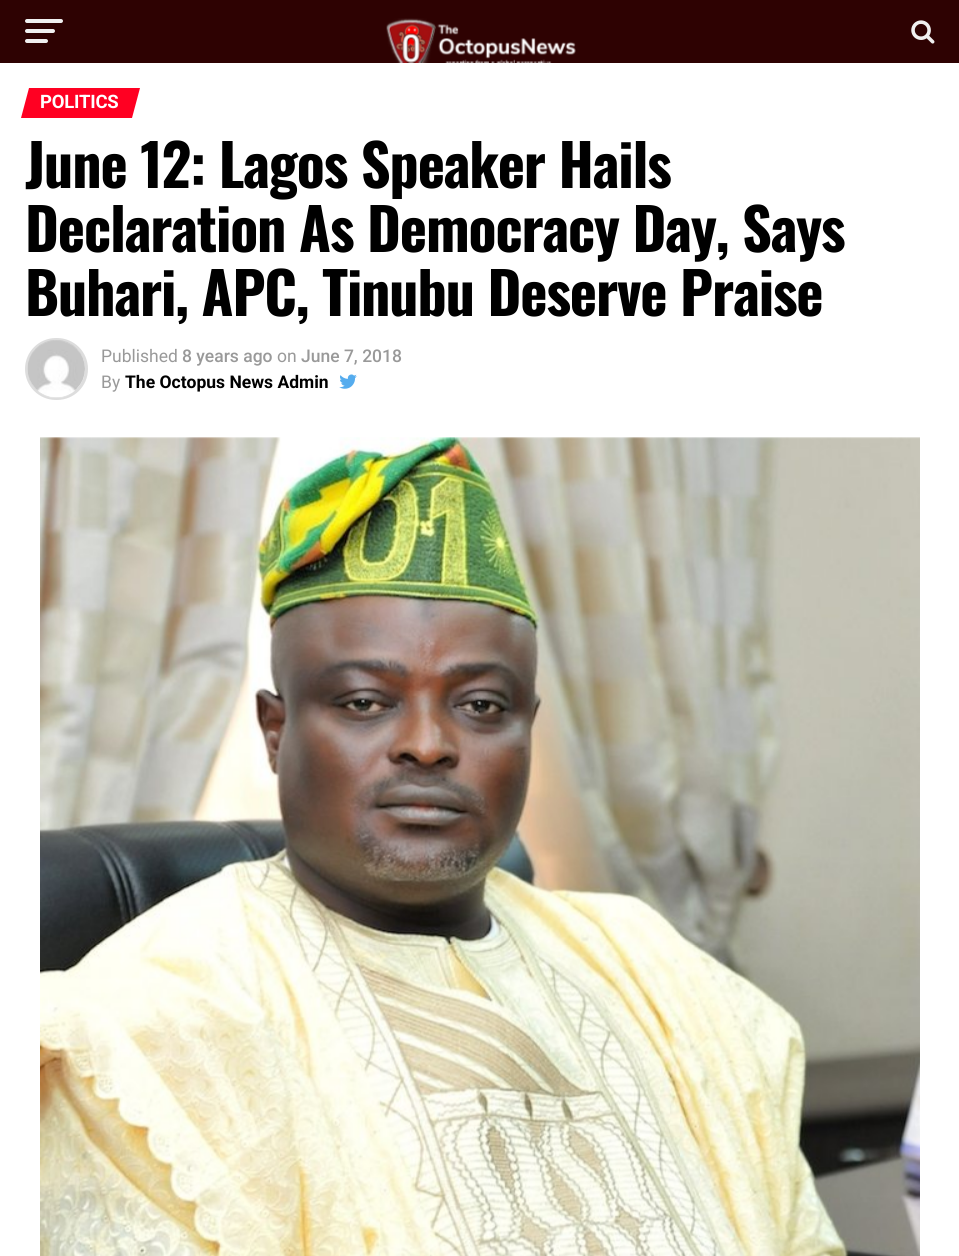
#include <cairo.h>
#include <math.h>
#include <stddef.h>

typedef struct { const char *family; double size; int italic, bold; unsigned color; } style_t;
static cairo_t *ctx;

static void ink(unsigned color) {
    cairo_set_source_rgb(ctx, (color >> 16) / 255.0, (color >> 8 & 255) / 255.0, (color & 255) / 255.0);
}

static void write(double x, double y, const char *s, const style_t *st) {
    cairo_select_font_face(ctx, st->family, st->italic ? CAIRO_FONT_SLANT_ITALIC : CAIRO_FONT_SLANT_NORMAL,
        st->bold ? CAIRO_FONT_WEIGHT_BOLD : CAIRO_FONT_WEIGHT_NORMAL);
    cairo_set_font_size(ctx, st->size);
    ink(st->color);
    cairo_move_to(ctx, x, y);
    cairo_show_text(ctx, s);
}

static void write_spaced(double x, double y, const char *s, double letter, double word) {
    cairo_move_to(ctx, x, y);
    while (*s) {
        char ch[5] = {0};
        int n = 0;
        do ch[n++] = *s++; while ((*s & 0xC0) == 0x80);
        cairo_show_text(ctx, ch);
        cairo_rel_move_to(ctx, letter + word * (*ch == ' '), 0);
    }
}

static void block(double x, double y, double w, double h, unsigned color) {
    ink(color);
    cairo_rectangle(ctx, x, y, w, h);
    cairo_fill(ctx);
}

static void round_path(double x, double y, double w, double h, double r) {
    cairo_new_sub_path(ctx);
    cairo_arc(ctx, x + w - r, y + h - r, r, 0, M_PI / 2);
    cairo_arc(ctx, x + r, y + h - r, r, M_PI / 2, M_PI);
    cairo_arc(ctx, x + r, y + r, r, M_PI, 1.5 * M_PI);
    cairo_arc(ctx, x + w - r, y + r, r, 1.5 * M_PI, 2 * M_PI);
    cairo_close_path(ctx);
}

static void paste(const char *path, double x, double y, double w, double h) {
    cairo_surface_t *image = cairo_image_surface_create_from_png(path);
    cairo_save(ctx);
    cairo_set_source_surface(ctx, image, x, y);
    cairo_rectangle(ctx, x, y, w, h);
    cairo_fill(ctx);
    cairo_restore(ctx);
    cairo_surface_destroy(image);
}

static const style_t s1 = {"Roboto", 17.5, 0, 0, 0x999999};
static const style_t s2 = {"Roboto Medium", 17.5, 0, 0, 0x999999};
static const style_t s3 = {"Roboto", 17.5, 0, 1, 0x000000};

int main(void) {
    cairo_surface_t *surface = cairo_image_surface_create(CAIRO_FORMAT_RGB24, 959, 1256);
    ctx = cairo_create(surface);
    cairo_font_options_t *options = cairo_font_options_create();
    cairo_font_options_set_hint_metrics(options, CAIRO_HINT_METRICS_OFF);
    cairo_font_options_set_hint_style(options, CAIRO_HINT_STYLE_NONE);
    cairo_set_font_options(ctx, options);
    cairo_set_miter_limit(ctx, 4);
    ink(0xffffff);
    cairo_paint(ctx);
    block(0, 0, 959, 63, 0x2e0202);
    ink(0xf0f0f0);
    round_path(25, 19, 38, 4, 2);
    cairo_fill(ctx);
    round_path(25, 29, 30, 4, 2);
    cairo_fill(ctx);
    round_path(25, 39, 23, 4, 2);
    cairo_fill(ctx);
    paste("pic1.png", 386, 18, 190, 45);
    paste("pic2.png", 911, 20, 24, 24);
    ink(0xff0022);
    cairo_new_path(ctx);
    cairo_move_to(ctx, 29, 88);
    cairo_line_to(ctx, 140, 88);
    cairo_line_to(ctx, 132, 118);
    cairo_line_to(ctx, 21, 118);
    cairo_close_path(ctx);
    cairo_fill(ctx);
    cairo_select_font_face(ctx, "Roboto", CAIRO_FONT_SLANT_NORMAL, CAIRO_FONT_WEIGHT_BOLD);
    cairo_set_font_size(ctx, 18.5);
    ink(0xffffff);
    write_spaced(40, 108, "POLITICS", -0.25, 0);
    cairo_select_font_face(ctx, "Oswald", CAIRO_FONT_SLANT_NORMAL, CAIRO_FONT_WEIGHT_BOLD);
    cairo_set_font_size(ctx, 58);
    ink(0x000000);
    write_spaced(25, 188, "June 12: Lagos Speaker Hails", -1.15, 0);
    write_spaced(25, 252, "Declaration As Democracy Day, Says", -1.15, 0);
    write_spaced(25, 316, "Buhari, APC, Tinubu Deserve Praise", -1.15, 0);
    round_path(26.5, 339.5, 60, 59, 29.5);
    ink(0xdddddd);
    cairo_set_line_width(ctx, 3);
    cairo_stroke(ctx);
    paste("pic3.png", 27, 340, 58, 58);
    write(101, 362, "Published", &s1);
    write(182, 362, "8 years ago", &s2);
    write(277, 362, "on", &s1);
    write(301, 362, "June 7, 2018", &s2);
    write(101, 388, "By", &s1);
    write(125, 388, "The Octopus News Admin", &s3);
    paste("pic4.png", 339, 374, 18, 15);
    paste("pic5.png", 40, 437, 880, 819);
    cairo_surface_write_to_png(surface, "screenshot.png");
    cairo_font_options_destroy(options);
    cairo_destroy(ctx);
    cairo_surface_destroy(surface);
    return 0;
}
